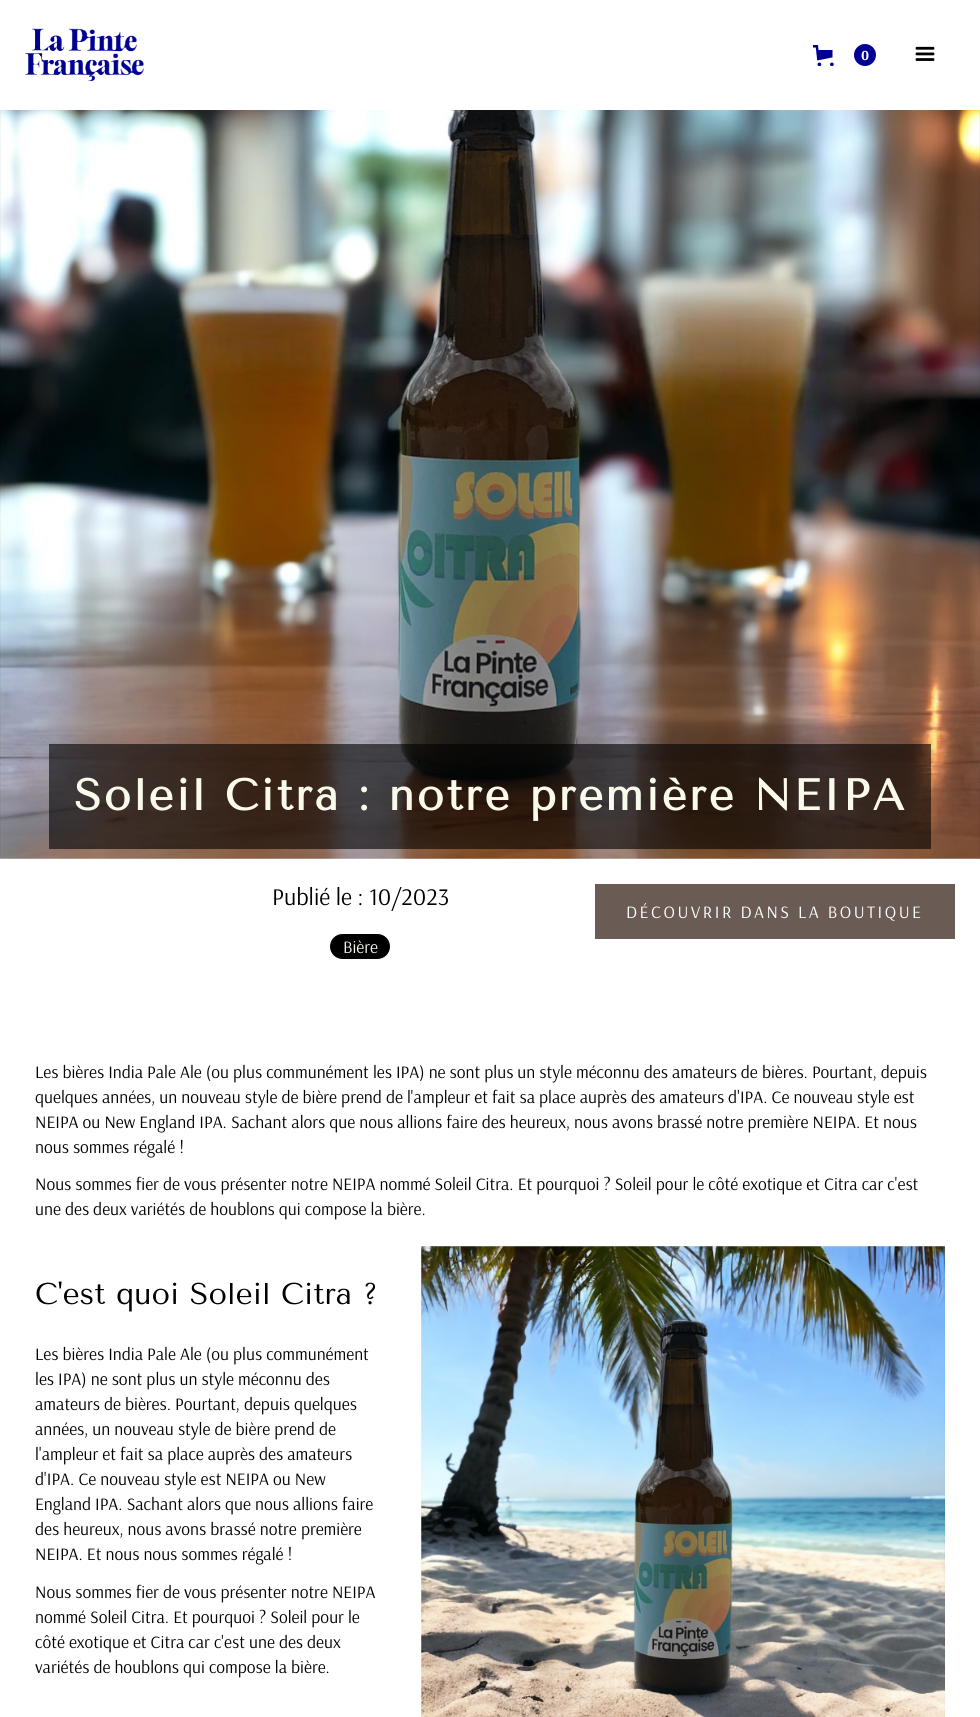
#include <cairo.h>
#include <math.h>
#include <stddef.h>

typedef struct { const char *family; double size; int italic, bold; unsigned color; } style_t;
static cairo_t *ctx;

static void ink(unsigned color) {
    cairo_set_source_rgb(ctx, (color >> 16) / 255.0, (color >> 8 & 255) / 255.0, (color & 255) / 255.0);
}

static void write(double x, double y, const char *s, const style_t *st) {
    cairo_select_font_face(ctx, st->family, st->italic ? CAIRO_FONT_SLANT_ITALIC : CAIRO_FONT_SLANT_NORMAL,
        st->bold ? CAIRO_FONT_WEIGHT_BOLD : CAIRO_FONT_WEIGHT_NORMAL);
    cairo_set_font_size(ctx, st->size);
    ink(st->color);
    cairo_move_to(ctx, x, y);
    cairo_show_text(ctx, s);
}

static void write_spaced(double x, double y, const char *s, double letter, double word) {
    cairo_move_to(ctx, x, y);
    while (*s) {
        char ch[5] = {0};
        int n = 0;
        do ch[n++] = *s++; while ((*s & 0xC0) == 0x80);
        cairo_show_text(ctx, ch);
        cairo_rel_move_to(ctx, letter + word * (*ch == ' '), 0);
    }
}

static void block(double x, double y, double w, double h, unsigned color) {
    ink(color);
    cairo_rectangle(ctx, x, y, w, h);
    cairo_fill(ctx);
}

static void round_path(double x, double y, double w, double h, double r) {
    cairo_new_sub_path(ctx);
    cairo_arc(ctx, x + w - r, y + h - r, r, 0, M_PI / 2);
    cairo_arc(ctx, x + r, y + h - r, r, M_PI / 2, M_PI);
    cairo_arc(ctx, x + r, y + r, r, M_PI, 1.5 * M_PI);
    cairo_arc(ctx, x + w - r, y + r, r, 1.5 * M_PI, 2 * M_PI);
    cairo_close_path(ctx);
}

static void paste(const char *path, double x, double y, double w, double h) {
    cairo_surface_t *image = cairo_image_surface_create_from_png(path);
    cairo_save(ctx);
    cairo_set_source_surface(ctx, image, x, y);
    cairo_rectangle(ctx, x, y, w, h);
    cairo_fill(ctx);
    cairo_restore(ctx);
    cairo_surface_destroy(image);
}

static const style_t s1 = {"Arsenal", 14, 0, 1, 0xffffff};
static const style_t s2 = {"Arsenal", 24, 0, 0, 0x000000};
static const style_t s3 = {"Arsenal", 17.5, 0, 0, 0xfafaeb};
static const style_t s4 = {"Arsenal", 17.5, 0, 0, 0x000000};
static const style_t s5 = {"Tenor Sans", 30, 0, 0, 0x000000};

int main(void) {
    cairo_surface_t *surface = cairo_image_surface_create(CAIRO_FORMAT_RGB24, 980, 1717);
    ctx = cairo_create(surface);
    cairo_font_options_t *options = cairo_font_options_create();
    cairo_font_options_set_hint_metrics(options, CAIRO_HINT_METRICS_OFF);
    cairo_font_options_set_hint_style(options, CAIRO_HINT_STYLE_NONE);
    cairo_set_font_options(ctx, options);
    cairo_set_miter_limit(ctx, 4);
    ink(0xffffff);
    cairo_paint(ctx);
    paste("pic1.png", 25, 28, 119, 54);
    paste("pic2.png", 813, 45, 21, 21);
    ink(0x000091);
    cairo_arc(ctx, 865, 55, 11, 0, 2 * M_PI);
    cairo_fill(ctx);
    write(861, 60, "0", &s1);
    paste("pic3.png", 915, 46, 20, 15);
    paste("pic4.png", 0, 110, 980, 749);
    cairo_set_source_rgba(ctx, 0, 0, 0, 0.6);
    cairo_rectangle(ctx, 49, 744, 882, 105);
    cairo_fill(ctx);
    cairo_select_font_face(ctx, "Tenor Sans", CAIRO_FONT_SLANT_NORMAL, CAIRO_FONT_WEIGHT_BOLD);
    cairo_set_font_size(ctx, 43.75);
    ink(0xfafaeb);
    write_spaced(74, 810, "Soleil Citra : notre première NEIPA", 2.5, 0);
    write(272, 905, "Publié le :", &s2);
    write(369, 905, "10/2023", &s2);
    round_path(330, 934, 60, 25, 12.5);
    cairo_fill(ctx);
    write(343, 953, "Bière", &s3);
    block(595, 884, 360, 55, 0x6a5c55);
    ink(0xffffff);
    write_spaced(626, 918, "DÉCOUVRIR DANS LA BOUTIQUE", 2.5, 0);
    write(35, 1078, "Les bières India Pale Ale (ou plus communément les IPA) ne sont plus un style méconnu des amateurs de bières. Pourtant, depuis", &s4);
    write(35, 1103, "quelques années, un nouveau style de bière prend de l'ampleur et fait sa place auprès des amateurs d'IPA. Ce nouveau style est", &s4);
    write(35, 1128, "NEIPA ou New England IPA. Sachant alors que nous allions faire des heureux, nous avons brassé notre première NEIPA. Et nous", &s4);
    write(35, 1153, "nous sommes régalé !", &s4);
    write(35, 1190, "Nous sommes fier de vous présenter notre NEIPA nommé Soleil Citra. Et pourquoi ? Soleil pour le côté exotique et Citra car c'est", &s4);
    write(35, 1215, "une des deux variétés de houblons qui compose la bière.", &s4);
    write(35, 1304, "C'est quoi Soleil Citra ?", &s5);
    write(35, 1360, "Les bières India Pale Ale (ou plus communément", &s4);
    write(35, 1385, "les IPA) ne sont plus un style méconnu des", &s4);
    write(35, 1410, "amateurs de bières. Pourtant, depuis quelques", &s4);
    write(35, 1435, "années, un nouveau style de bière prend de", &s4);
    write(35, 1460, "l'ampleur et fait sa place auprès des amateurs", &s4);
    write(35, 1485, "d'IPA. Ce nouveau style est NEIPA ou New", &s4);
    write(35, 1510, "England IPA. Sachant alors que nous allions faire", &s4);
    write(35, 1535, "des heureux, nous avons brassé notre première", &s4);
    write(35, 1560, "NEIPA. Et nous nous sommes régalé !", &s4);
    write(35, 1598, "Nous sommes fier de vous présenter notre NEIPA", &s4);
    write(35, 1623, "nommé Soleil Citra. Et pourquoi ? Soleil pour le", &s4);
    write(35, 1648, "côté exotique et Citra car c'est une des deux", &s4);
    write(35, 1673, "variétés de houblons qui compose la bière.", &s4);
    paste("pic5.png", 421, 1246, 524, 471);
    cairo_surface_write_to_png(surface, "screenshot.png");
    cairo_font_options_destroy(options);
    cairo_destroy(ctx);
    cairo_surface_destroy(surface);
    return 0;
}
